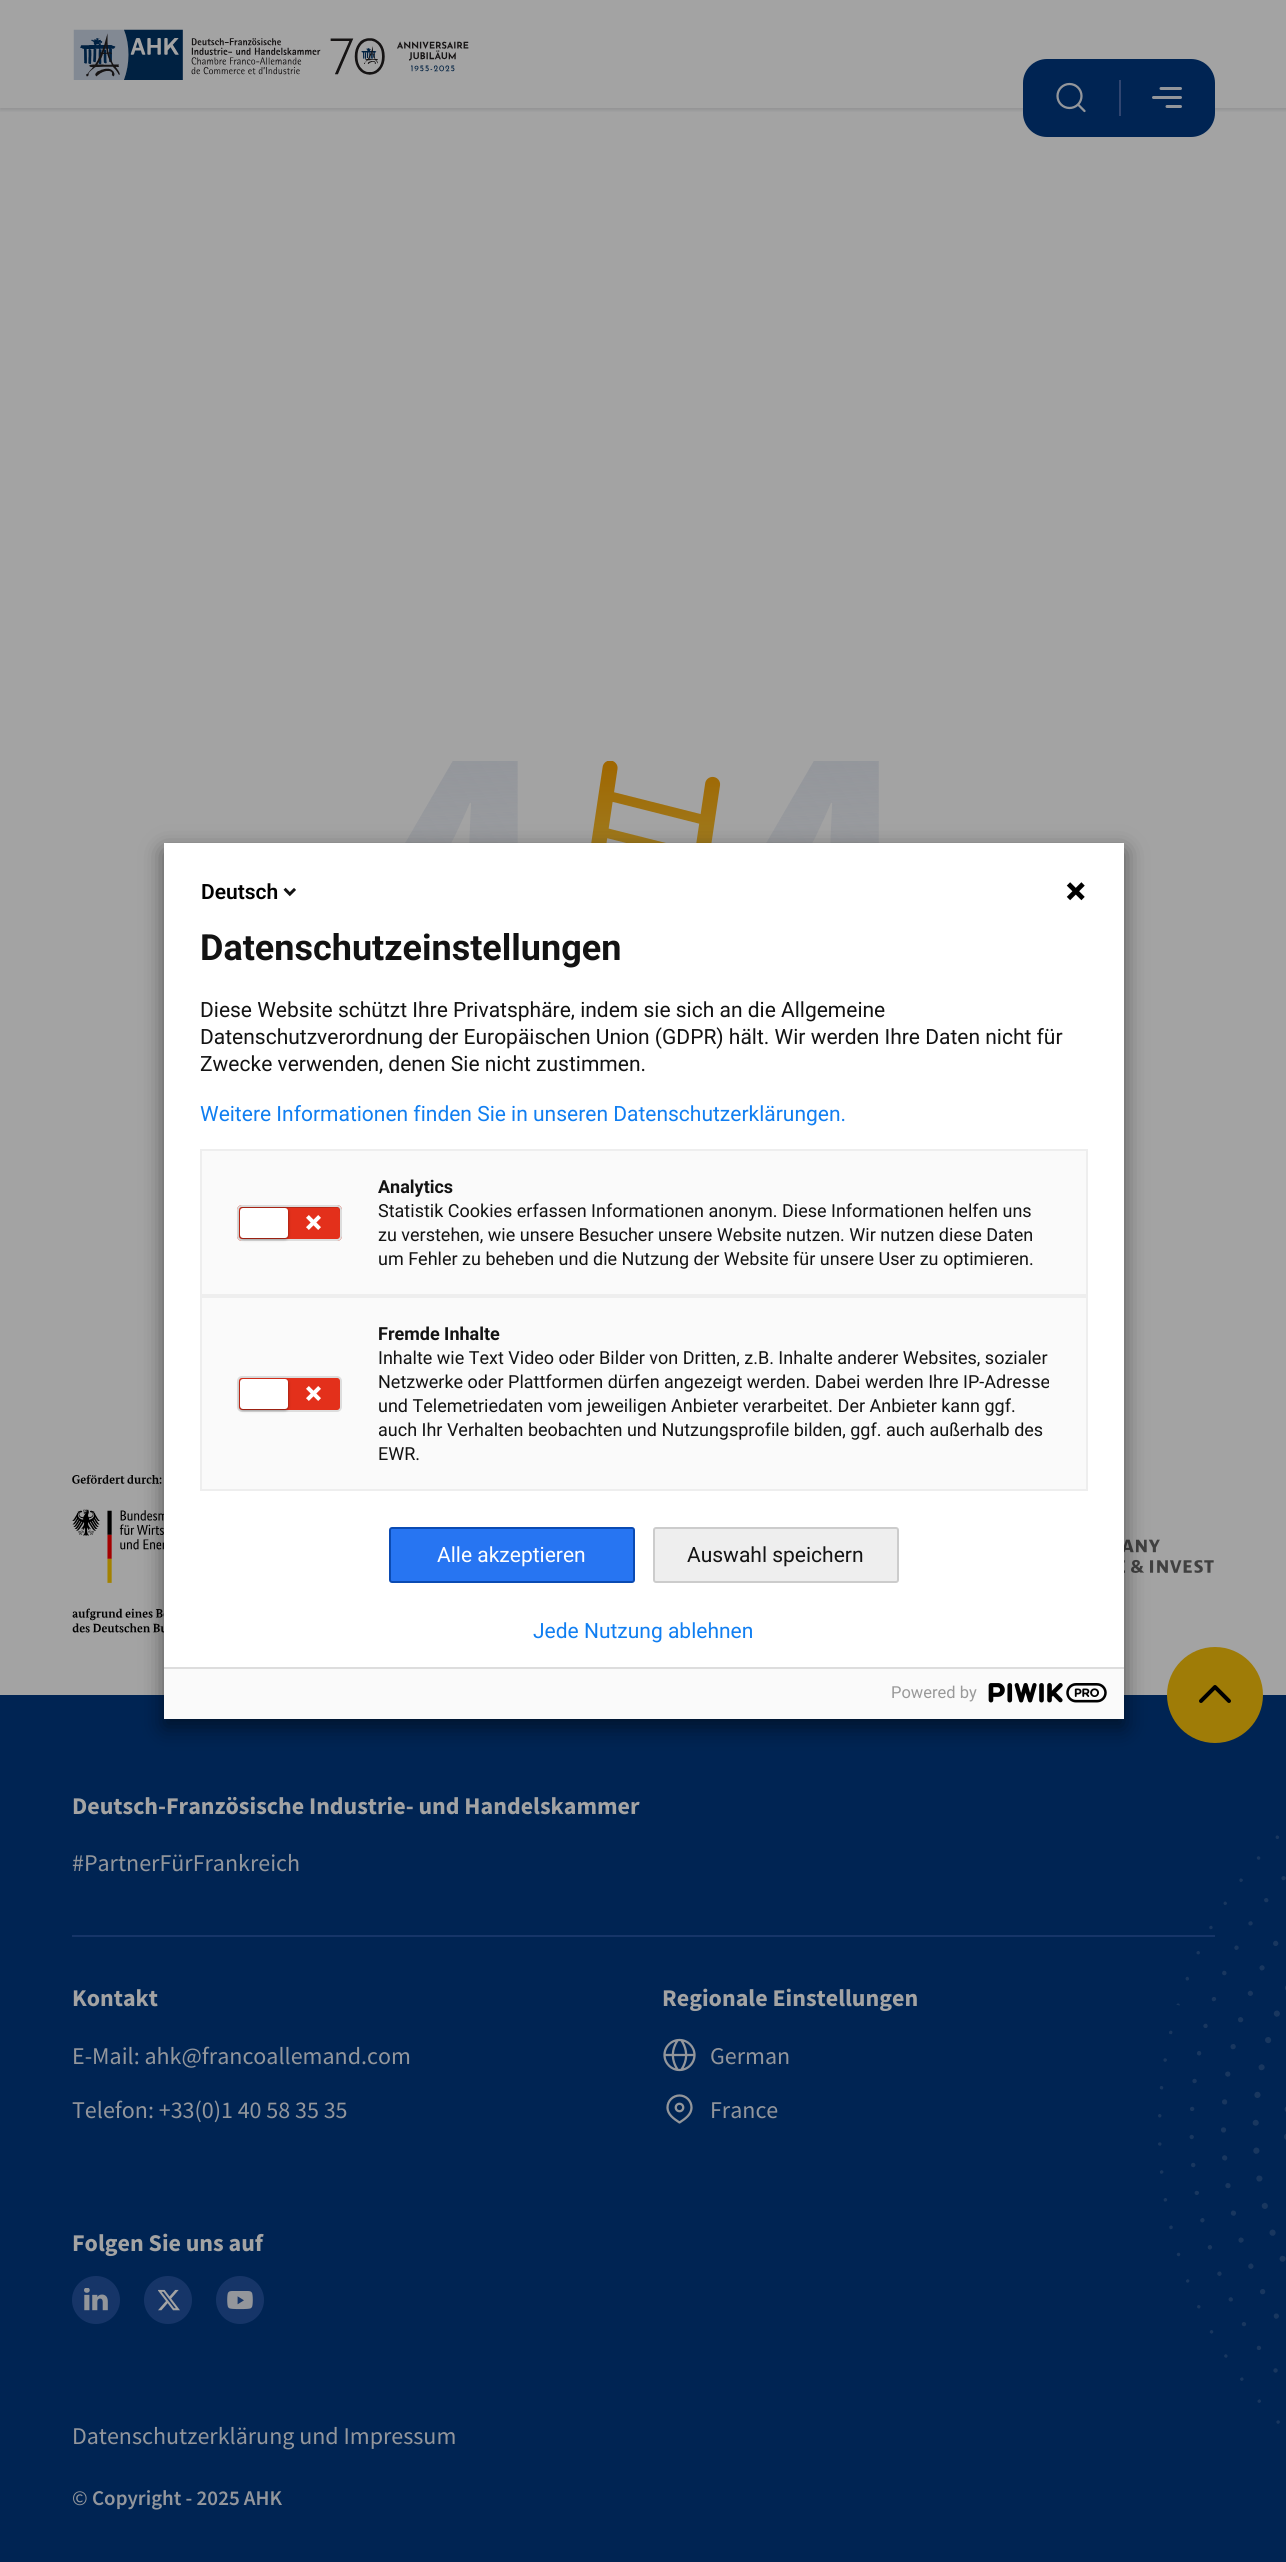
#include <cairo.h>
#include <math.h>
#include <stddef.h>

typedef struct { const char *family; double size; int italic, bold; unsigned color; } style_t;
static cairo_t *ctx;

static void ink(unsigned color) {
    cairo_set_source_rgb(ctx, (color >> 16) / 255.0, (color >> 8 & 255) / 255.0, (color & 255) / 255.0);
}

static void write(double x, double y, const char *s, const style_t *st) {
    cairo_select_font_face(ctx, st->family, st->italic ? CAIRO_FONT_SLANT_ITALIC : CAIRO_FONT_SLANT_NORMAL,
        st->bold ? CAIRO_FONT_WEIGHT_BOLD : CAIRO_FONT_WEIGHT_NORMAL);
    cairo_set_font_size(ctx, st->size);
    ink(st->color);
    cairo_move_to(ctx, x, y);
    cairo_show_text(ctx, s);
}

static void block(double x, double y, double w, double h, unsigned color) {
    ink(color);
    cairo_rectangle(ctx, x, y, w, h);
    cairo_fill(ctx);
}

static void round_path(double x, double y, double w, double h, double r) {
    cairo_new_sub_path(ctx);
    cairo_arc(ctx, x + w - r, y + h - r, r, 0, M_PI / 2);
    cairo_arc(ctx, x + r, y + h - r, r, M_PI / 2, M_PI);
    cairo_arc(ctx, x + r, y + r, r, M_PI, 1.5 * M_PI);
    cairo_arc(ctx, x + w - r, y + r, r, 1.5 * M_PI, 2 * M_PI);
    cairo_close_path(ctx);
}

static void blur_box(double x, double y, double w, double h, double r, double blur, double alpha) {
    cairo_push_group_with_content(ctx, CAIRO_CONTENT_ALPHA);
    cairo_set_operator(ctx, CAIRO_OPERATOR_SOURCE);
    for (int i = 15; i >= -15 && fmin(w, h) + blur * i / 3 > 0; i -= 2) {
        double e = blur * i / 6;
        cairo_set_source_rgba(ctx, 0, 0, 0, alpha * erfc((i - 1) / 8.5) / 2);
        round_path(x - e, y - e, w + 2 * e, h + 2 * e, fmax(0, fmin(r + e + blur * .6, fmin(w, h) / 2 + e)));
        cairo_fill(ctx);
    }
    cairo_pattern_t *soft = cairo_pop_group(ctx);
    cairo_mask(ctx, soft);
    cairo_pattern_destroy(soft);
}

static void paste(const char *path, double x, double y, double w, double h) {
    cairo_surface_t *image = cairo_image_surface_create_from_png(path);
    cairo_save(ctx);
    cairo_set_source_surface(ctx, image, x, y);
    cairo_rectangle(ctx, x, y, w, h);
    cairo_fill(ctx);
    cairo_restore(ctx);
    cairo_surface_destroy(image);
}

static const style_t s1 = {"Roboto SemiBold", 21, 0, 0, 0x000000};
static const style_t s2 = {"Roboto", 36, 0, 1, 0x131313};
static const style_t s3 = {"Roboto", 21, 0, 0, 0x131313};
static const style_t s4 = {"Roboto", 21, 0, 0, 0x107ef1};
static const style_t s5 = {"Roboto", 18, 0, 1, 0x131313};
static const style_t s6 = {"Roboto", 18, 0, 0, 0x131313};
static const style_t s7 = {"Roboto", 21, 0, 0, 0xffffff};
static const style_t s8 = {"Roboto", 16.5, 0, 0, 0x999999};
static const style_t s9 = {"Source Sans Pro", 24, 0, 1, 0xa3a3a3};
static const style_t s10 = {"Source Sans Pro", 24, 0, 0, 0x93969c};
static const style_t s11 = {"Source Sans Pro", 21, 0, 0, 0x93969c};
static const style_t s12 = {"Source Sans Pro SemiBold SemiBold", 21, 0, 0, 0x93969c};

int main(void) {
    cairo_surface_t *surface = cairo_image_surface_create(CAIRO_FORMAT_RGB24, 1286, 2562);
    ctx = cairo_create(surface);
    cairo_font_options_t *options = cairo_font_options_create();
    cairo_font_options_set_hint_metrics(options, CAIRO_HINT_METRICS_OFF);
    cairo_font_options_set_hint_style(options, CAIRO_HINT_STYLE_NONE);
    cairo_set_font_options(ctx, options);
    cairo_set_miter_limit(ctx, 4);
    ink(0xa3a3a3);
    cairo_paint(ctx);
    paste("pic8.png", 405, 761, 474, 82);
    paste("pic9.png", 72, 1475, 92, 158);
    paste("pic10.png", 1124, 1539, 90, 34);
    block(0, 1695, 1286, 867, 0x002453);
    ink(0x000000);
    blur_box(164, 851, 960, 876, 0, 11, 0.5);
    block(164, 843, 960, 824, 0xffffff);
    write(201, 899, "Deutsch", &s1);
    paste("pic1.png", 283, 887, 13, 10);
    paste("pic2.png", 1066, 882, 19, 19);
    write(200, 960, "Datenschutzeinstellungen", &s2);
    write(200, 1017, "Diese Website schützt Ihre Privatsphäre, indem sie sich an die Allgemeine", &s3);
    write(200, 1044, "Datenschutzverordnung der Europäischen Union (GDPR) hält. Wir werden Ihre Daten nicht für", &s3);
    write(200, 1071, "Zwecke verwenden, denen Sie nicht zustimmen.", &s3);
    write(200, 1121, "Weitere Informationen finden Sie in unseren Datenschutzerklärungen.", &s4);
    ink(0xfafafa);
    cairo_rectangle(ctx, 201, 1150, 886, 145);
    cairo_fill_preserve(ctx);
    ink(0xeeeeee);
    cairo_stroke(ctx);
    ink(0xe3301b);
    round_path(237, 1205, 105, 36, 5);
    cairo_fill(ctx);
    ink(0xb62616);
    cairo_new_path(ctx);
    cairo_move_to(ctx, 242, 1208);
    cairo_line_to(ctx, 322, 1208);
    cairo_curve_to(ctx, 341, 1208, 340, 1204, 340, 1219);
    cairo_line_to(ctx, 340, 1238);
    cairo_curve_to(ctx, 341, 1238, 341, 1237, 341, 1236);
    cairo_line_to(ctx, 341, 1209);
    cairo_curve_to(ctx, 341, 1207, 340, 1206, 338, 1206);
    cairo_line_to(ctx, 242, 1206);
    cairo_curve_to(ctx, 240, 1206, 239, 1207, 239, 1209);
    cairo_close_path(ctx);
    cairo_fill(ctx);
    round_path(238, 1206, 103, 34, 4);
    ink(0xdddddd);
    cairo_stroke(ctx);
    ink(0x000000);
    blur_box(240, 1209, 48, 30, 3, 1.5, 0.5);
    ink(0xffffff);
    round_path(240, 1208, 48, 30, 3);
    cairo_fill(ctx);
    paste("pic3.png", 306, 1215, 15, 15);
    write(378, 1193, "Analytics", &s5);
    write(378, 1217, "Statistik Cookies erfassen Informationen anonym. Diese Informationen helfen uns", &s6);
    write(378, 1241, "zu verstehen, wie unsere Besucher unsere Website nutzen. Wir nutzen diese Daten", &s6);
    write(378, 1265, "um Fehler zu beheben und die Nutzung der Website für unsere User zu optimieren.", &s6);
    ink(0xfafafa);
    cairo_rectangle(ctx, 201, 1297, 886, 193);
    cairo_fill_preserve(ctx);
    ink(0xeeeeee);
    cairo_stroke(ctx);
    ink(0xe3301b);
    round_path(238, 1377, 103, 34, 4);
    cairo_fill_preserve(ctx);
    ink(0xdddddd);
    cairo_stroke(ctx);
    ink(0x000000);
    blur_box(240, 1380, 48, 30, 3, 1.5, 0.5);
    ink(0xffffff);
    round_path(240, 1379, 48, 30, 3);
    cairo_fill(ctx);
    paste("pic3.png", 306, 1386, 15, 15);
    write(378, 1340, "Fremde Inhalte", &s5);
    write(378, 1364, "Inhalte wie Text Video oder Bilder von Dritten, z.B. Inhalte anderer Websites, sozialer", &s6);
    write(378, 1388, "Netzwerke oder Plattformen dürfen angezeigt werden. Dabei werden Ihre IP-Adresse", &s6);
    write(378, 1412, "und Telemetriedaten vom jeweiligen Anbieter verarbeitet. Der Anbieter kann ggf.", &s6);
    write(378, 1436, "auch Ihr Verhalten beobachten und Nutzungsprofile bilden, ggf. auch außerhalb des", &s6);
    write(378, 1460, "EWR.", &s6);
    ink(0x2775f2);
    round_path(390, 1528, 244, 54, 2);
    cairo_fill_preserve(ctx);
    ink(0x0b4bb3);
    cairo_stroke(ctx);
    write(437, 1562, "Alle akzeptieren", &s7);
    ink(0xeeeeee);
    round_path(654, 1528, 244, 54, 2);
    cairo_fill_preserve(ctx);
    ink(0xcccccc);
    cairo_stroke(ctx);
    write(687, 1562, "Auswahl speichern", &s3);
    write(533, 1638, "Jede Nutzung ablehnen", &s4);
    block(164, 1669, 960, 50, 0xfafafa);
    block(164, 1667, 960, 2, 0xdddddd);
    write(891, 1698, "Powered by", &s8);
    paste("pic4.png", 988, 1683, 119, 20);
    cairo_save(ctx);
    cairo_rectangle(ctx, 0, 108, 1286, 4);
    cairo_clip(ctx);
    ink(0x0a0f1a);
    blur_box(0, 2, 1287, 108, 0, 2, 0.12);
    cairo_restore(ctx);
    paste("pic5.png", 73, 29, 396, 51);
    ink(0x002453);
    round_path(1023, 59, 192, 78, 24);
    cairo_fill(ctx);
    paste("pic6.png", 1056, 82, 30, 31);
    block(1119, 80, 2, 36, 0x304570);
    paste("pic7.png", 1152, 87, 30, 21);
    paste("pic11.png", 1158, 1835, 128, 589);
    ink(0x9f7c07);
    cairo_arc(ctx, 1215, 1695, 48, 0, 2 * M_PI);
    cairo_fill(ctx);
    paste("pic12.png", 1199, 1685, 32, 18);
    write(72, 1814, "Deutsch-Französische Industrie- und Handelskammer", &s9);
    write(72, 1871, "#PartnerFürFrankreich", &s10);
    block(72, 1935, 1143, 2, 0x163568);
    write(72, 2006, "Kontakt", &s9);
    write(72, 2064, "E-Mail: ahk@francoallemand.com", &s10);
    write(72, 2118, "Telefon: +33(0)1 40 58 35 35", &s10);
    write(662, 2006, "Regionale Einstellungen", &s9);
    paste("pic13.png", 663, 2038, 33, 34);
    write(710, 2064, "German", &s10);
    paste("pic14.png", 666, 2094, 27, 30);
    write(710, 2118, "France", &s10);
    write(72, 2251, "Folgen Sie uns auf", &s9);
    ink(0x163568);
    cairo_new_path(ctx);
    cairo_arc(ctx, 96, 2300, 24, 0, 2 * M_PI);
    cairo_fill(ctx);
    paste("pic15.png", 84, 2288, 24, 23);
    cairo_arc(ctx, 168, 2300, 24, 0, 2 * M_PI);
    cairo_fill(ctx);
    paste("pic16.png", 158, 2289, 22, 22);
    cairo_arc(ctx, 240, 2300, 24, 0, 2 * M_PI);
    cairo_fill(ctx);
    paste("pic17.png", 227, 2291, 26, 19);
    write(72, 2444, "Datenschutzerklärung und Impressum", &s10);
    write(72, 2505, "©", &s11);
    write(92, 2505, "Copyright - 2025 AHK", &s12);
    cairo_surface_write_to_png(surface, "screenshot.png");
    cairo_font_options_destroy(options);
    cairo_destroy(ctx);
    cairo_surface_destroy(surface);
    return 0;
}
